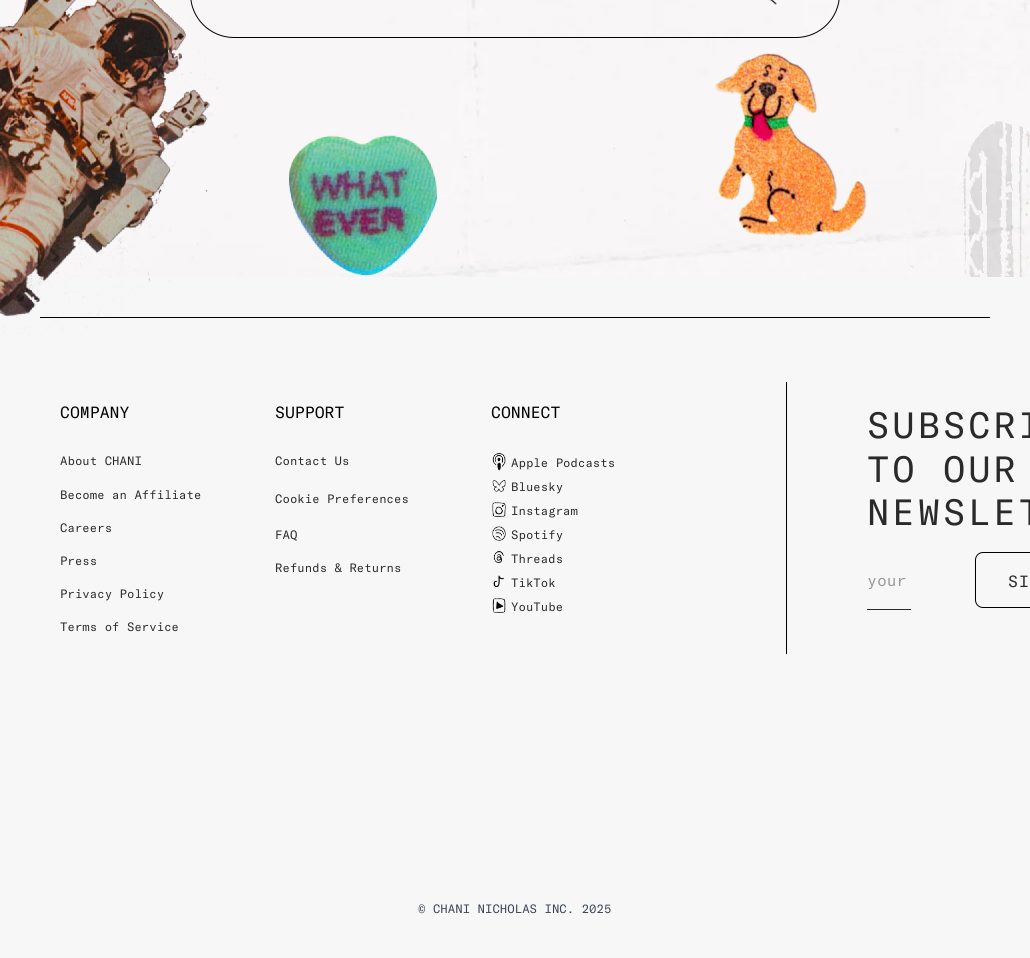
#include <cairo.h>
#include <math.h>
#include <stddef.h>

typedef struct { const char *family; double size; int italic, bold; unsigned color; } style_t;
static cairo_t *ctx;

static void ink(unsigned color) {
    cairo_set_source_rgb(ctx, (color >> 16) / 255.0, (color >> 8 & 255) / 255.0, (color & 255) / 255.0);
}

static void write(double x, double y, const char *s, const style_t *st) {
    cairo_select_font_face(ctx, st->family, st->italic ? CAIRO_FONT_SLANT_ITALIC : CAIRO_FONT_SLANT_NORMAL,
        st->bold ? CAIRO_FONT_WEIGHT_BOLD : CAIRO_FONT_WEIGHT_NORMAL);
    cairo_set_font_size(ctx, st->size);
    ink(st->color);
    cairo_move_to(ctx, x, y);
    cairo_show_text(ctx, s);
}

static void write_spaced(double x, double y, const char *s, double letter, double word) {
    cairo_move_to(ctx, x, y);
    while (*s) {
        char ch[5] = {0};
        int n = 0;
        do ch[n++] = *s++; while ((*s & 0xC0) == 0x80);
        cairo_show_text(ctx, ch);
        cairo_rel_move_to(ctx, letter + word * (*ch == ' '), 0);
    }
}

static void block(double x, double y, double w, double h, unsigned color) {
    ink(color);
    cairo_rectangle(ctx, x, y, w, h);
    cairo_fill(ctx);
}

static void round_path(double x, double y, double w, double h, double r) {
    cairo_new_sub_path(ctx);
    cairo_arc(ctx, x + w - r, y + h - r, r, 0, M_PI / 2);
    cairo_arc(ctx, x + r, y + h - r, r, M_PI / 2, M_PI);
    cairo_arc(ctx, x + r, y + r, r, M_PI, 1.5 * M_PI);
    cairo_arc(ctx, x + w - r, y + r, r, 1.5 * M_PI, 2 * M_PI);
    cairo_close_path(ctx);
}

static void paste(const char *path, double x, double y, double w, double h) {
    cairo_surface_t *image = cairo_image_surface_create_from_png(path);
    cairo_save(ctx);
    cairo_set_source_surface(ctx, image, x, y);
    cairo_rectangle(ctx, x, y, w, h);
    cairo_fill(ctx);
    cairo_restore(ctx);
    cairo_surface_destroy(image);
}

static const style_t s1 = {"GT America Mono", 16, 0, 0, 0x000000};
static const style_t s2 = {"GT America Mono", 12, 0, 0, 0x2a2a2b};
static const style_t s3 = {"GT America Mono", 16, 0, 0, 0x999999};
static const style_t s4 = {"GT America Mono", 12, 0, 0, 0x3a4554};

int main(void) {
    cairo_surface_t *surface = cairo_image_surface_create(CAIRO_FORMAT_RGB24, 1030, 958);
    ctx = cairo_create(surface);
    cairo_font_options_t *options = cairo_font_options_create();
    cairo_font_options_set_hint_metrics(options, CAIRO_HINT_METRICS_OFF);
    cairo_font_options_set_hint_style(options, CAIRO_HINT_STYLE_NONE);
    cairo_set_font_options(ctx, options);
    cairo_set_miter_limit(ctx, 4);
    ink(0xf8f7f7);
    cairo_paint(ctx);
    paste("pic1.png", 7, 0, 1023, 277);
    round_path(190.5, -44.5, 649, 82, 43.5);
    ink(0x000000);
    cairo_set_line_width(ctx, 1);
    cairo_stroke(ctx);
    paste("pic2.png", 0, 0, 219, 338);
    paste("pic3.png", 769, 0, 8, 5);
    paste("pic4.png", 289, 135, 148, 142);
    paste("pic5.png", 715, 53, 152, 184);
    block(40, 317, 950, 1, 0x000000);
    block(786, 382, 1, 272, 0x000000);
    write(60, 418, "COMPANY", &s1);
    write(60, 465, "About CHANI", &s2);
    write(60, 499, "Become an Affiliate", &s2);
    write(60, 532, "Careers", &s2);
    write(60, 565, "Press", &s2);
    write(60, 598, "Privacy Policy", &s2);
    write(60, 631, "Terms of Service", &s2);
    write(275, 418, "SUPPORT", &s1);
    write(275, 465, "Contact Us", &s2);
    write(275, 503, "Cookie Preferences", &s2);
    write(275, 539, "FAQ", &s2);
    write(275, 572, "Refunds & Returns", &s2);
    write(491, 418, "CONNECT", &s1);
    paste("pic6.png", 492, 452, 14, 19);
    write(511, 467, "Apple Podcasts", &s2);
    paste("pic7.png", 492, 480, 14, 12);
    write(511, 491, "Bluesky", &s2);
    paste("pic8.png", 492, 502, 14, 15);
    write(511, 515, "Instagram", &s2);
    paste("pic9.png", 492, 526, 14, 15);
    write(511, 539, "Spotify", &s2);
    paste("pic10.png", 493, 550, 11, 13);
    write(511, 563, "Threads", &s2);
    paste("pic11.png", 493, 575, 11, 12);
    write(511, 587, "TikTok", &s2);
    paste("pic12.png", 492, 598, 14, 15);
    write(511, 611, "YouTube", &s2);
    cairo_set_font_size(ctx, 36);
    write_spaced(867, 438, "SUBSCRI", 3, 0);
    write_spaced(867, 482, "TO OUR", 3, 0);
    write_spaced(867, 525, "NEWSLET", 3, 0);
    block(867, 609, 44, 1, 0x2a2a2b);
    write(867, 586, "your", &s3);
    round_path(975.5, 552.5, 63, 55, 7.5);
    ink(0x000000);
    cairo_stroke(ctx);
    ink(0x2a2a2b);
    write_spaced(1008, 587, "SI", 1, 0);
    write(418, 913, "© CHANI NICHOLAS INC. 2025", &s4);
    cairo_surface_write_to_png(surface, "screenshot.png");
    cairo_font_options_destroy(options);
    cairo_destroy(ctx);
    cairo_surface_destroy(surface);
    return 0;
}
